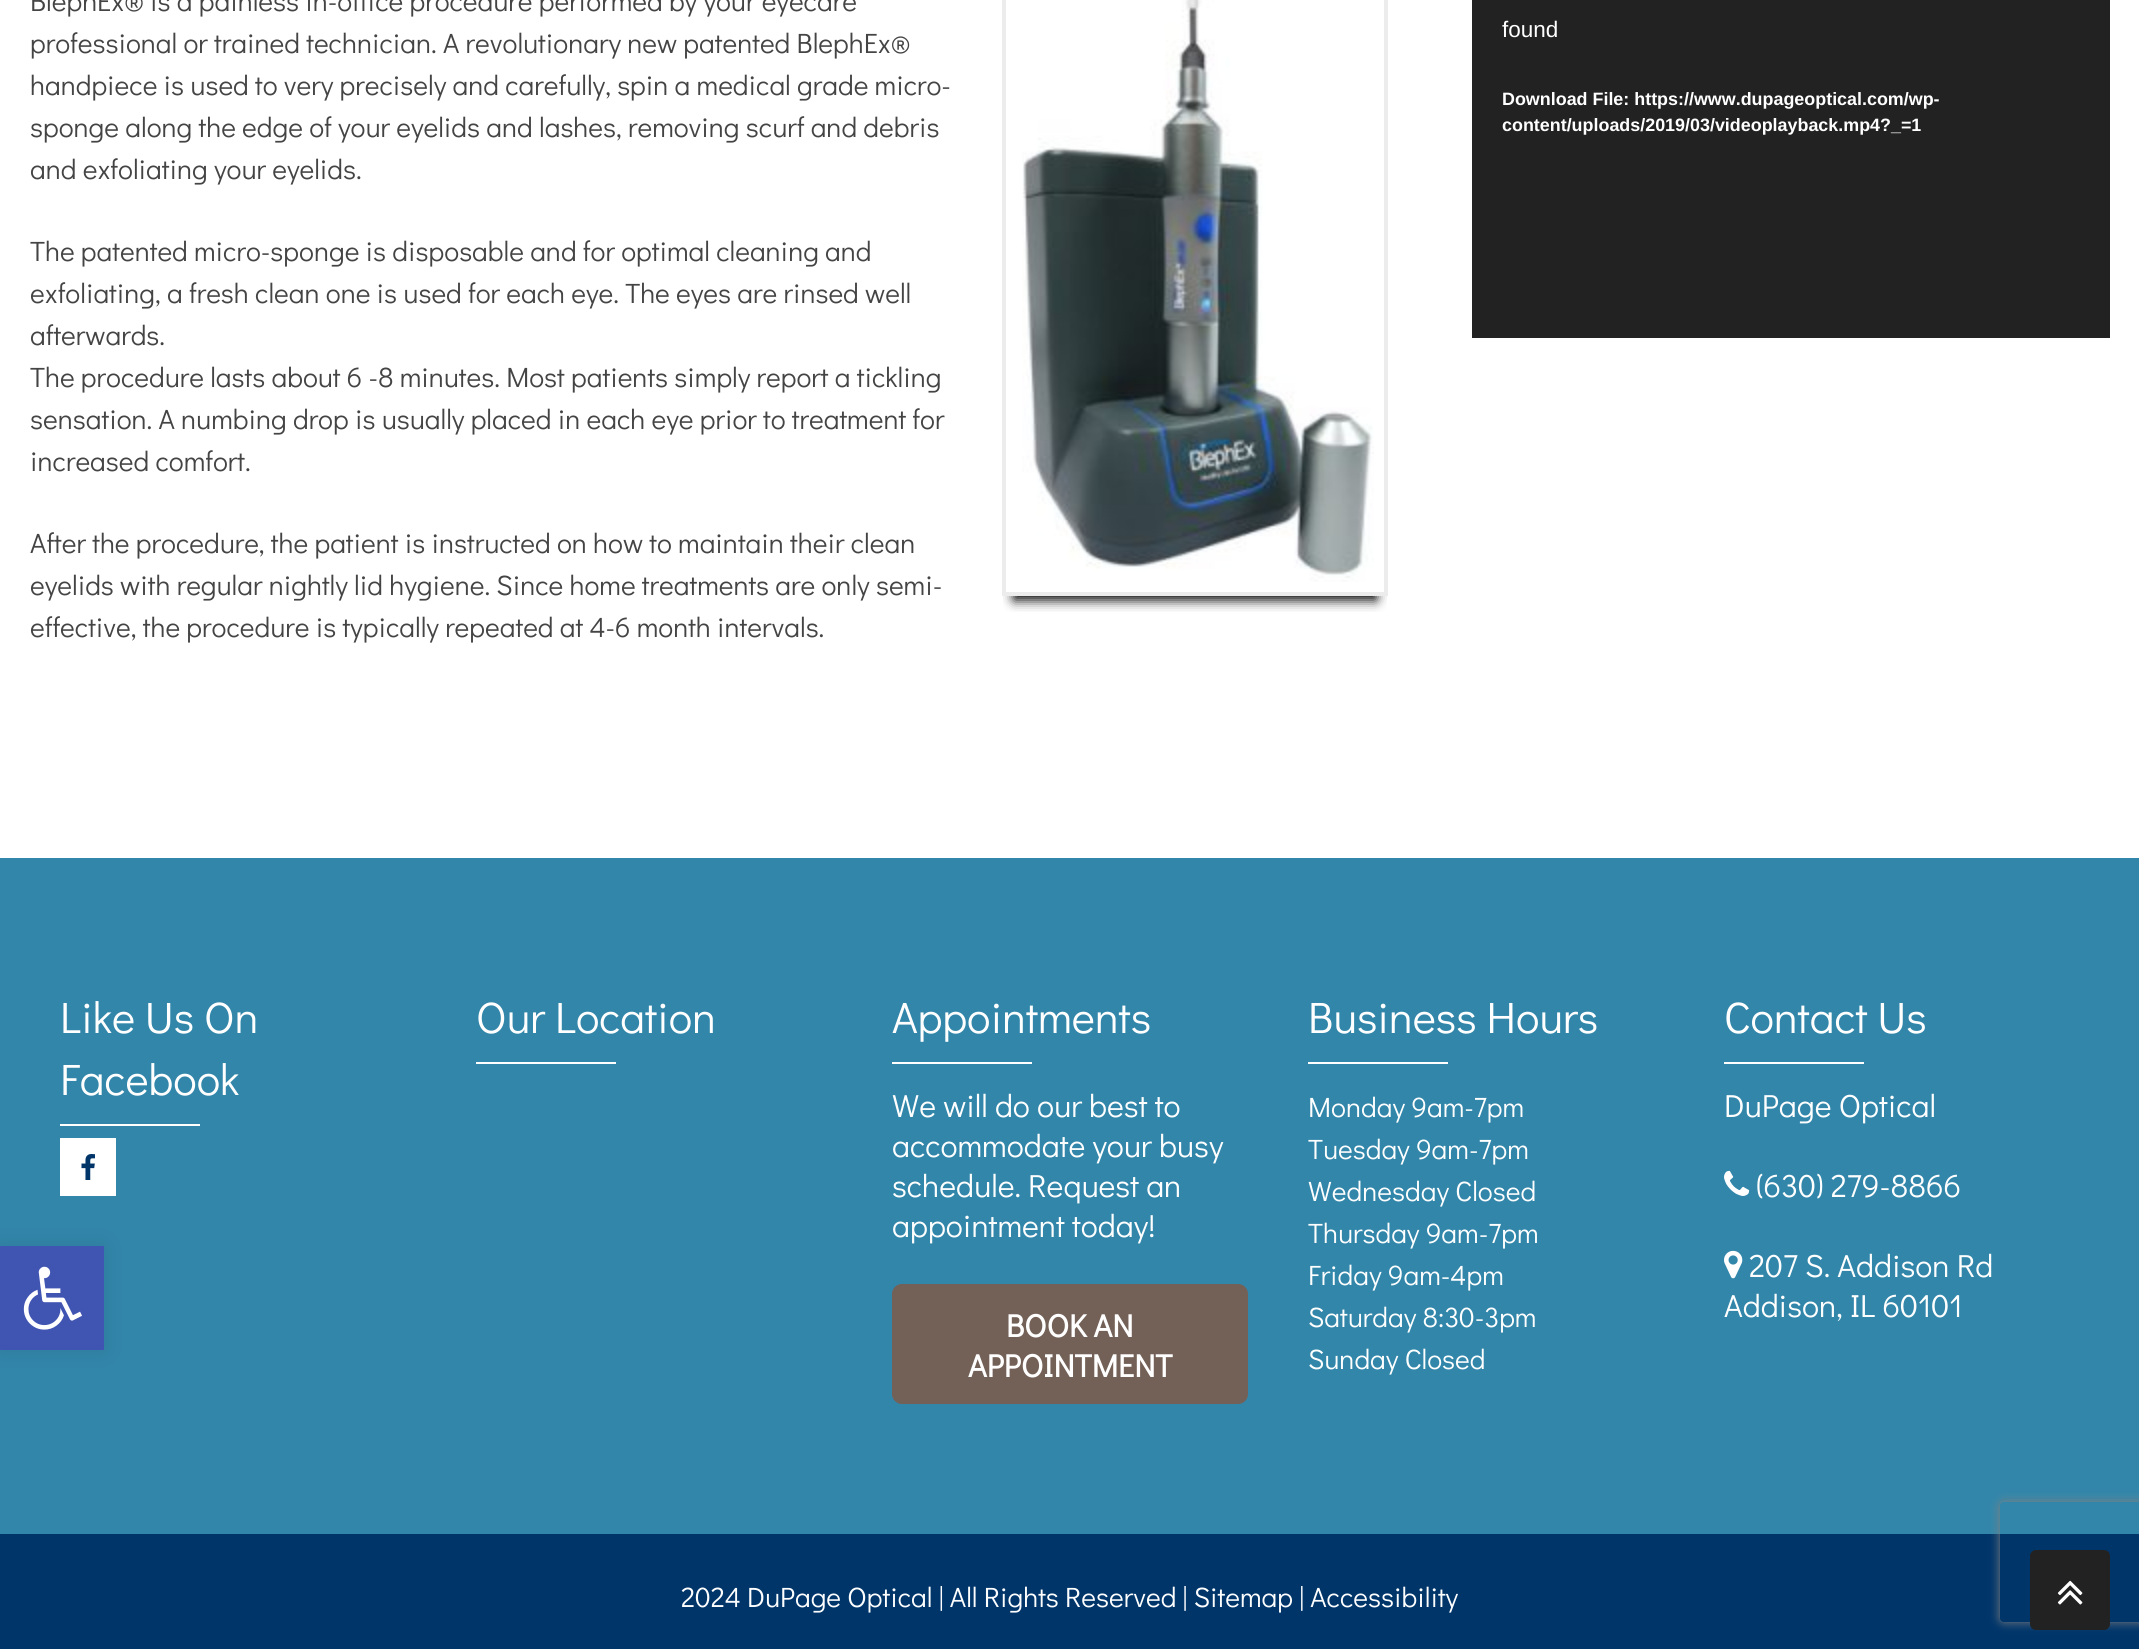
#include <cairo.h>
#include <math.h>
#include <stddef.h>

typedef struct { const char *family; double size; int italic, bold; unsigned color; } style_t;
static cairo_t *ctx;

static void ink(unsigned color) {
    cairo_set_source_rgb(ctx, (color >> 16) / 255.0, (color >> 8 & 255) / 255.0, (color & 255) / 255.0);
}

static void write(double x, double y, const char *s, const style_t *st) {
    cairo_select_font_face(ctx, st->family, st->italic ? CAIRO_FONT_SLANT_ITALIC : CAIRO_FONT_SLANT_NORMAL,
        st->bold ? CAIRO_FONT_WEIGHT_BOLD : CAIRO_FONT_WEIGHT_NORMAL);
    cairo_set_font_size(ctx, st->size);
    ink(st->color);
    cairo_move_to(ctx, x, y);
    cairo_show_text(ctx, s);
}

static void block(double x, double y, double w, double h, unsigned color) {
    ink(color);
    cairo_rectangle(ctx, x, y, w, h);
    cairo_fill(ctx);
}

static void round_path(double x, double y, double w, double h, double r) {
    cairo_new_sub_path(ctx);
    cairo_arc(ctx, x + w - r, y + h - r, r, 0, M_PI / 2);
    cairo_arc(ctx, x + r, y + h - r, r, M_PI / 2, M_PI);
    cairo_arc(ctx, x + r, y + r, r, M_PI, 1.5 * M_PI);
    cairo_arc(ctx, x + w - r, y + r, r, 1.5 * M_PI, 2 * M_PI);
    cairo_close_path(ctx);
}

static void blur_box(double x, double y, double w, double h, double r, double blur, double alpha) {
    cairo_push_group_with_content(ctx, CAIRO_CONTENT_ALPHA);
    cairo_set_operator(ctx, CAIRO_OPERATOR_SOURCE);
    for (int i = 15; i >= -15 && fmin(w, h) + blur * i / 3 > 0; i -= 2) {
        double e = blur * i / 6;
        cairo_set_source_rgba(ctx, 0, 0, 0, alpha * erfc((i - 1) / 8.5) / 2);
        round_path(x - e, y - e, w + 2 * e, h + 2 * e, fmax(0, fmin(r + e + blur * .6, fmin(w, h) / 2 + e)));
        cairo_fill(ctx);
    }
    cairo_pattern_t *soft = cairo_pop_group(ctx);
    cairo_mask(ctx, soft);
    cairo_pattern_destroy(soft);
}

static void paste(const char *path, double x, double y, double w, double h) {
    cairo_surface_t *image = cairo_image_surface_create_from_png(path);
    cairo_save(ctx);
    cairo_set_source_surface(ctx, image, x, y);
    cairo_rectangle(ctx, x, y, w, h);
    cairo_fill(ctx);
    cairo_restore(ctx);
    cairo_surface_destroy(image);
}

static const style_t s1 = {"Didact Gothic", 28, 0, 0, 0x444444};
static const style_t s2 = {"Liberation Sans", 22.5, 0, 0, 0xffffff};
static const style_t s3 = {"Liberation Sans", 17.9, 0, 1, 0xffffff};
static const style_t s4 = {"Didact Gothic", 44, 0, 0, 0xffffff};
static const style_t s5 = {"Didact Gothic", 32, 0, 0, 0xffffff};
static const style_t s6 = {"Didact Gothic", 32, 0, 1, 0xffffff};
static const style_t s7 = {"Didact Gothic", 28, 0, 0, 0xffffff};

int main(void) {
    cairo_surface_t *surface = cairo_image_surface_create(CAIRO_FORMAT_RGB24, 2139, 1649);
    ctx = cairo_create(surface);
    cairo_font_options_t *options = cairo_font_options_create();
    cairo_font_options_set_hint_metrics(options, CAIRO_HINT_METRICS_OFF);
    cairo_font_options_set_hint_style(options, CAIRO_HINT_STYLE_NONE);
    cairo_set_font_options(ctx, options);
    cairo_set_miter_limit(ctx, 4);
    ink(0xffffff);
    cairo_paint(ctx);
    write(30, 11, "BlephEx® is a painless in-office procedure performed by your eyecare", &s1);
    cairo_save(ctx);
    cairo_rectangle(ctx, 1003, 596, 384, 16);
    cairo_clip(ctx);
    ink(0x000000);
    blur_box(1014, 16, 362, 584, 0, 6, 1);
    cairo_restore(ctx);
    cairo_rectangle(ctx, 1004, -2, 382, 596);
    ink(0xececec);
    cairo_set_line_width(ctx, 4);
    cairo_stroke(ctx);
    paste("pic1.png", 1022, 0, 352, 582);
    write(30, 53, "professional or trained technician. A revolutionary new patented BlephEx®", &s1);
    write(30, 95, "handpiece is used to very precisely and carefully, spin a medical grade micro-", &s1);
    write(30, 137, "sponge along the edge of your eyelids and lashes, removing scurf and debris", &s1);
    write(30, 179, "and exfoliating your eyelids.", &s1);
    write(30, 261, "The patented micro-sponge is disposable and for optimal cleaning and", &s1);
    write(30, 303, "exfoliating, a fresh clean one is used for each eye. The eyes are rinsed well", &s1);
    write(30, 345, "afterwards.", &s1);
    write(30, 387, "The procedure lasts about 6 -8 minutes. Most patients simply report a tickling", &s1);
    write(30, 429, "sensation. A numbing drop is usually placed in each eye prior to treatment for", &s1);
    write(30, 471, "increased comfort.", &s1);
    write(30, 553, "After the procedure, the patient is instructed on how to maintain their clean", &s1);
    write(30, 595, "eyelids with regular nightly lid hygiene. Since home treatments are only semi-", &s1);
    write(30, 637, "effective, the procedure is typically repeated at 4-6 month intervals.", &s1);
    block(1472, 0, 638, 338, 0x222222);
    write(1502, 37, "found", &s2);
    write(1502, 105, "Download File: https://www.dupageoptical.com/wp-", &s3);
    write(1502, 131, "content/uploads/2019/03/videoplayback.mp4?_=1", &s3);
    block(0, 858, 2139, 676, 0x3286aa);
    write(60, 1033, "Like Us On", &s4);
    write(60, 1095, "Facebook", &s4);
    block(60, 1124, 140, 2, 0xffffff);
    block(60, 1138, 56, 58, 0xffffff);
    paste("pic2.png", 81, 1154, 14, 26);
    write(476, 1033, "Our Location", &s4);
    block(476, 1062, 140, 2, 0xffffff);
    write(892, 1033, "Appointments", &s4);
    block(892, 1062, 140, 2, 0xffffff);
    write(892, 1117, "We will do our best to", &s5);
    write(892, 1157, "accommodate your busy", &s5);
    write(892, 1197, "schedule. Request an", &s5);
    write(892, 1237, "appointment today!", &s5);
    ink(0x736056);
    round_path(892, 1284, 356, 120, 10);
    cairo_fill(ctx);
    write(1006, 1337, "BOOK AN", &s6);
    write(968, 1377, "APPOINTMENT", &s6);
    write(1308, 1033, "Business Hours", &s4);
    block(1308, 1062, 140, 2, 0xffffff);
    write(1308, 1117, "Monday 9am-7pm", &s7);
    write(1308, 1159, "Tuesday 9am-7pm", &s7);
    write(1308, 1201, "Wednesday Closed", &s7);
    write(1308, 1243, "Thursday 9am-7pm", &s7);
    write(1308, 1285, "Friday 9am-4pm", &s7);
    write(1308, 1327, "Saturday 8:30-3pm", &s7);
    write(1308, 1369, "Sunday Closed", &s7);
    write(1724, 1033, "Contact Us", &s4);
    block(1724, 1062, 140, 2, 0xffffff);
    write(1724, 1117, "DuPage Optical", &s5);
    paste("pic3.png", 1724, 1170, 26, 26);
    write(1756, 1197, "(630) 279-8866", &s5);
    paste("pic4.png", 1724, 1250, 19, 29);
    write(1749, 1277, "207 S. Addison Rd", &s5);
    write(1724, 1317, "Addison, IL 60101", &s5);
    block(0, 1534, 2139, 115, 0x00356a);
    write(681, 1607, "2024 DuPage Optical | All Rights Reserved | Sitemap | Accessibility", &s7);
    ink(0x000000);
    blur_box(0, 1246, 104, 104, 0, 10, 0.1);
    block(0, 1246, 104, 104, 0x4054b2);
    paste("pic5.png", 23, 1266, 59, 64);
    cairo_save(ctx);
    cairo_set_fill_rule(ctx, CAIRO_FILL_RULE_EVEN_ODD);
    cairo_new_path(ctx);
    cairo_move_to(ctx, 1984, 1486);
    cairo_line_to(ctx, 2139, 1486);
    cairo_line_to(ctx, 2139, 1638);
    cairo_line_to(ctx, 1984, 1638);
    cairo_close_path(ctx);
    cairo_move_to(ctx, 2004, 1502);
    cairo_line_to(ctx, 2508, 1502);
    cairo_curve_to(ctx, 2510, 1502, 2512, 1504, 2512, 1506);
    cairo_line_to(ctx, 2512, 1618);
    cairo_curve_to(ctx, 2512, 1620, 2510, 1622, 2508, 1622);
    cairo_line_to(ctx, 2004, 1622);
    cairo_curve_to(ctx, 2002, 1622, 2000, 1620, 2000, 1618);
    cairo_line_to(ctx, 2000, 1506);
    cairo_curve_to(ctx, 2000, 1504, 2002, 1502, 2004, 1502);
    cairo_close_path(ctx);
    cairo_clip(ctx);
    ink(0x808080);
    blur_box(2000, 1502, 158, 120, 4, 5, 1);
    cairo_restore(ctx);
    ink(0x222222);
    round_path(2030, 1550, 80, 80, 6);
    cairo_fill(ctx);
    paste("pic6.png", 2057, 1580, 26, 25);
    cairo_surface_write_to_png(surface, "screenshot.png");
    cairo_font_options_destroy(options);
    cairo_destroy(ctx);
    cairo_surface_destroy(surface);
    return 0;
}
